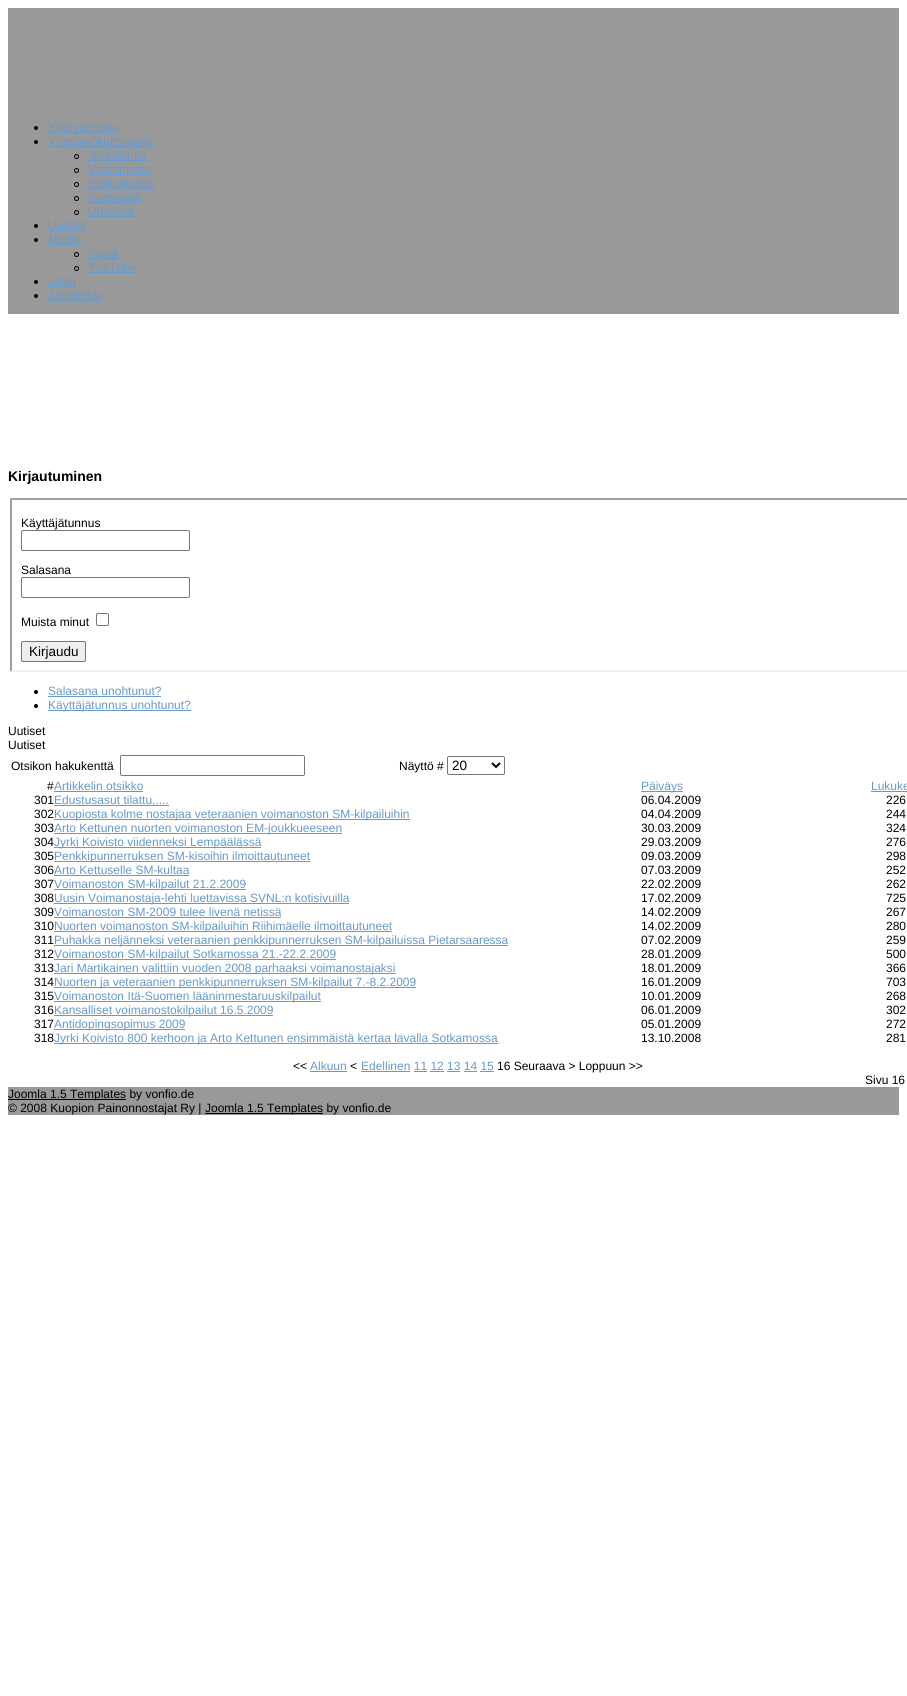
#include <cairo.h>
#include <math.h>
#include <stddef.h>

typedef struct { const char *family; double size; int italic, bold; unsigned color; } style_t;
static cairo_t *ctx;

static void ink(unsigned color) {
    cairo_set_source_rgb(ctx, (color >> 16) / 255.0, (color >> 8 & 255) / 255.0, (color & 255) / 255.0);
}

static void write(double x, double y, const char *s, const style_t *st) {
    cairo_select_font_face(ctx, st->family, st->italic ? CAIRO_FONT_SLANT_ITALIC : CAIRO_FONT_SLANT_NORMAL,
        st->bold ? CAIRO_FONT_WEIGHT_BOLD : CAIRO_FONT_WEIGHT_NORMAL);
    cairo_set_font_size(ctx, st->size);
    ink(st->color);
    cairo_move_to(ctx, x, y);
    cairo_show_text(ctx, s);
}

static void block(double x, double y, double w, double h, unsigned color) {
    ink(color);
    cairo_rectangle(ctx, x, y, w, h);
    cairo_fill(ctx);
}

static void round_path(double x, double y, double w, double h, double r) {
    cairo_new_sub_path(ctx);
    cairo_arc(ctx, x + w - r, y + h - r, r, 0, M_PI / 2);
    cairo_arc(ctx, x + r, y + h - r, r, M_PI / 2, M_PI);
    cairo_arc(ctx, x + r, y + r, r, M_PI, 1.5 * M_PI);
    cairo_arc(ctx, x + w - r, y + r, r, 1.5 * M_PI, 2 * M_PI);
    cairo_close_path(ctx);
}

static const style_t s1 = {"Liberation Sans", 12, 0, 0, 0x6699cc};
static const style_t s2 = {"Liberation Sans", 14, 0, 1, 0x000000};
static const style_t s3 = {"Liberation Sans", 12, 0, 0, 0x000000};
static const style_t s4 = {"Liberation Sans", 13.5, 0, 0, 0x000000};

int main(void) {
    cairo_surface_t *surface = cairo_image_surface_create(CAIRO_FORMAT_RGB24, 907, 1696);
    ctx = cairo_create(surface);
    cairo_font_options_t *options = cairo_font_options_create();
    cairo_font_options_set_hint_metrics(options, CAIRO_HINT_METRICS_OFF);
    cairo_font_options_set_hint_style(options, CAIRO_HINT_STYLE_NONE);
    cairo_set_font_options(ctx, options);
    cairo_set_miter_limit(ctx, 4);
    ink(0xffffff);
    cairo_paint(ctx);
    block(8, 8, 891, 1107, 0x999999);
    block(48, 132, 71, 1, 0x6699cc);
    write(48, 131, "Yhteydenotto", &s1);
    block(48, 146, 105, 1, 0x6699cc);
    write(48, 145, "Yhteistyökumppanit", &s1);
    ink(0x000000);
    cairo_new_path(ctx);
    cairo_arc(ctx, 36, 128, 2, 0, 2 * M_PI);
    cairo_fill(ctx);
    cairo_arc(ctx, 36, 142, 2, 0, 2 * M_PI);
    cairo_fill(ctx);
    cairo_arc(ctx, 76.5, 156.5, 2, 0, 2 * M_PI);
    cairo_set_line_width(ctx, 1);
    cairo_stroke(ctx);
    write(88, 159, "Johtokunta", &s1);
    block(88, 160, 59, 1, 0x6699cc);
    cairo_new_path(ctx);
    cairo_arc(ctx, 76.5, 170.5, 2, 0, 2 * M_PI);
    ink(0x000000);
    cairo_stroke(ctx);
    write(88, 173, "Voimanosto", &s1);
    block(88, 174, 63, 1, 0x6699cc);
    cairo_new_path(ctx);
    cairo_arc(ctx, 76.5, 184.5, 2, 0, 2 * M_PI);
    ink(0x000000);
    cairo_stroke(ctx);
    write(88, 187, "Painonnosto", &s1);
    block(88, 188, 67, 1, 0x6699cc);
    cairo_new_path(ctx);
    cairo_arc(ctx, 76.5, 198.5, 2, 0, 2 * M_PI);
    ink(0x000000);
    cairo_stroke(ctx);
    write(88, 201, "Kuntosalit", &s1);
    block(88, 202, 53, 1, 0x6699cc);
    cairo_new_path(ctx);
    cairo_arc(ctx, 76.5, 212.5, 2, 0, 2 * M_PI);
    ink(0x000000);
    cairo_stroke(ctx);
    block(88, 216, 47, 1, 0x6699cc);
    write(88, 215, "Urheilijat", &s1);
    ink(0x000000);
    cairo_new_path(ctx);
    cairo_arc(ctx, 36, 226, 2, 0, 2 * M_PI);
    cairo_fill(ctx);
    write(48, 229, "Uutiset", &s1);
    block(48, 230, 37, 1, 0x6699cc);
    ink(0x000000);
    cairo_new_path(ctx);
    cairo_arc(ctx, 36, 240, 2, 0, 2 * M_PI);
    cairo_fill(ctx);
    write(48, 243, "Media", &s1);
    block(48, 244, 33, 1, 0x6699cc);
    cairo_new_path(ctx);
    cairo_arc(ctx, 76.5, 254.5, 2, 0, 2 * M_PI);
    ink(0x000000);
    cairo_stroke(ctx);
    write(88, 257, "Kuvat", &s1);
    block(88, 258, 31, 1, 0x6699cc);
    cairo_new_path(ctx);
    cairo_arc(ctx, 76.5, 268.5, 2, 0, 2 * M_PI);
    ink(0x000000);
    cairo_stroke(ctx);
    write(88, 271, "YouTube", &s1);
    block(88, 272, 49, 1, 0x6699cc);
    ink(0x000000);
    cairo_new_path(ctx);
    cairo_arc(ctx, 36, 282, 2, 0, 2 * M_PI);
    cairo_fill(ctx);
    write(48, 285, "Linkit", &s1);
    block(48, 286, 28, 1, 0x6699cc);
    ink(0x000000);
    cairo_new_path(ctx);
    cairo_arc(ctx, 36, 296, 2, 0, 2 * M_PI);
    cairo_fill(ctx);
    write(48, 299, "Jäseneksi", &s1);
    block(48, 300, 53, 1, 0x6699cc);
    block(8, 314, 891, 773, 0xffffff);
    write(8, 481, "Kirjautuminen", &s2);
    ink(0x9f9f9f);
    cairo_new_path(ctx);
    cairo_move_to(ctx, 10, 498);
    cairo_line_to(ctx, 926, 498);
    cairo_line_to(ctx, 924, 500);
    cairo_line_to(ctx, 12, 500);
    cairo_close_path(ctx);
    cairo_fill(ctx);
    ink(0xefefef);
    cairo_new_path(ctx);
    cairo_move_to(ctx, 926, 672);
    cairo_line_to(ctx, 10, 672);
    cairo_line_to(ctx, 12, 670);
    cairo_line_to(ctx, 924, 670);
    cairo_close_path(ctx);
    cairo_fill(ctx);
    ink(0x9f9f9f);
    cairo_new_path(ctx);
    cairo_move_to(ctx, 10, 672);
    cairo_line_to(ctx, 10, 498);
    cairo_line_to(ctx, 12, 500);
    cairo_line_to(ctx, 12, 670);
    cairo_close_path(ctx);
    cairo_fill(ctx);
    write(21, 527, "Käyttäjätunnus", &s3);
    round_path(21.5, 530.5, 168, 20, 1.5);
    ink(0x767676);
    cairo_stroke(ctx);
    write(21, 574, "Salasana", &s3);
    round_path(21.5, 577.5, 168, 20, 1.5);
    ink(0x767676);
    cairo_stroke(ctx);
    write(21, 626, "Muista minut", &s3);
    round_path(96.5, 613.5, 12, 12, 1.5);
    ink(0x767676);
    cairo_stroke(ctx);
    ink(0xefefef);
    round_path(21.5, 641.5, 64, 20, 1.5);
    cairo_fill_preserve(ctx);
    ink(0x767676);
    cairo_stroke(ctx);
    write(29, 656, "Kirjaudu", &s4);
    cairo_new_path(ctx);
    cairo_arc(ctx, 36, 692, 2, 0, 2 * M_PI);
    cairo_fill(ctx);
    write(48, 695, "Salasana unohtunut?", &s1);
    block(48, 696, 113, 1, 0x6699cc);
    ink(0x000000);
    cairo_new_path(ctx);
    cairo_arc(ctx, 36, 706, 2, 0, 2 * M_PI);
    cairo_fill(ctx);
    block(48, 710, 143, 1, 0x6699cc);
    write(48, 709, "Käyttäjätunnus unohtunut?", &s1);
    write(8, 735, "Uutiset", &s3);
    write(8, 749, "Uutiset", &s3);
    write(11, 770, "Otsikon hakukenttä", &s3);
    round_path(120.5, 755.5, 184, 20, 1.5);
    ink(0x767676);
    cairo_stroke(ctx);
    write(399, 770, "Näyttö #", &s3);
    round_path(447.5, 756.5, 57, 18, 1.5);
    ink(0x767676);
    cairo_stroke(ctx);
    cairo_new_path(ctx);
    cairo_move_to(ctx, 492, 763);
    cairo_line_to(ctx, 496, 767);
    cairo_line_to(ctx, 500, 763);
    ink(0x000000);
    cairo_set_line_width(ctx, 2);
    cairo_stroke(ctx);
    write(452, 770, "20", &s4);
    write(47, 790, "#", &s3);
    write(54, 790, "Artikkelin otsikko", &s1);
    block(54, 791, 89, 1, 0x6699cc);
    block(641, 791, 42, 1, 0x6699cc);
    write(641, 790, "Päiväys", &s1);
    write(871, 790, "Lukuke", &s1);
    block(871, 791, 36, 1, 0x6699cc);
    write(34, 804, "301", &s3);
    write(54, 804, "Edustusasut tilattu.....", &s1);
    block(54, 805, 115, 1, 0x6699cc);
    write(641, 804, "06.04.2009", &s3);
    write(886, 804, "226", &s3);
    write(34, 818, "302", &s3);
    block(54, 819, 356, 1, 0x6699cc);
    write(54, 818, "Kuopiosta kolme nostajaa veteraanien voimanoston SM-kilpailuihin", &s1);
    write(641, 818, "04.04.2009", &s3);
    write(886, 818, "244", &s3);
    write(34, 832, "303", &s3);
    block(54, 833, 288, 1, 0x6699cc);
    write(54, 832, "Arto Kettunen nuorten voimanoston EM-joukkueeseen", &s1);
    write(641, 832, "30.03.2009", &s3);
    write(886, 832, "324", &s3);
    write(34, 846, "304", &s3);
    block(54, 847, 207, 1, 0x6699cc);
    write(54, 846, "Jyrki Koivisto viidenneksi Lempäälässä", &s1);
    write(641, 846, "29.03.2009", &s3);
    write(886, 846, "276", &s3);
    write(34, 860, "305", &s3);
    block(54, 861, 256, 1, 0x6699cc);
    write(54, 860, "Penkkipunnerruksen SM-kisoihin ilmoittautuneet", &s1);
    write(641, 860, "09.03.2009", &s3);
    write(886, 860, "298", &s3);
    write(34, 874, "306", &s3);
    write(54, 874, "Arto Kettuselle SM-kultaa", &s1);
    block(54, 875, 135, 1, 0x6699cc);
    write(641, 874, "07.03.2009", &s3);
    write(886, 874, "252", &s3);
    write(34, 888, "307", &s3);
    block(54, 889, 192, 1, 0x6699cc);
    write(54, 888, "Voimanoston SM-kilpailut 21.2.2009", &s1);
    write(641, 888, "22.02.2009", &s3);
    write(886, 888, "262", &s3);
    write(34, 902, "308", &s3);
    block(54, 903, 295, 1, 0x6699cc);
    write(54, 902, "Uusin Voimanostaja-lehti luettavissa SVNL:n kotisivuilla", &s1);
    write(641, 902, "17.02.2009", &s3);
    write(886, 902, "725", &s3);
    write(34, 916, "309", &s3);
    write(54, 916, "Voimanoston SM-2009 tulee livenä netissä", &s1);
    block(54, 917, 227, 1, 0x6699cc);
    write(641, 916, "14.02.2009", &s3);
    write(886, 916, "267", &s3);
    write(34, 930, "310", &s3);
    block(54, 931, 338, 1, 0x6699cc);
    write(54, 930, "Nuorten voimanoston SM-kilpailuihin Riihimäelle ilmoittautuneet", &s1);
    write(641, 930, "14.02.2009", &s3);
    write(886, 930, "280", &s3);
    write(34, 944, "311", &s3);
    block(54, 945, 454, 1, 0x6699cc);
    write(54, 944, "Puhakka neljänneksi veteraanien penkkipunnerruksen SM-kilpailuissa Pietarsaaressa", &s1);
    write(641, 944, "07.02.2009", &s3);
    write(886, 944, "259", &s3);
    write(34, 958, "312", &s3);
    block(54, 959, 282, 1, 0x6699cc);
    write(54, 958, "Voimanoston SM-kilpailut Sotkamossa 21.-22.2.2009", &s1);
    write(641, 958, "28.01.2009", &s3);
    write(886, 958, "500", &s3);
    write(34, 972, "313", &s3);
    block(54, 973, 342, 1, 0x6699cc);
    write(54, 972, "Jari Martikainen valittiin vuoden 2008 parhaaksi voimanostajaksi", &s1);
    write(641, 972, "18.01.2009", &s3);
    write(886, 972, "366", &s3);
    write(34, 986, "314", &s3);
    block(54, 987, 362, 1, 0x6699cc);
    write(54, 986, "Nuorten ja veteraanien penkkipunnerruksen SM-kilpailut 7.-8.2.2009", &s1);
    write(641, 986, "16.01.2009", &s3);
    write(886, 986, "703", &s3);
    write(34, 1000, "315", &s3);
    block(54, 1001, 267, 1, 0x6699cc);
    write(54, 1000, "Voimanoston Itä-Suomen lääninmestaruuskilpailut", &s1);
    write(641, 1000, "10.01.2009", &s3);
    write(886, 1000, "268", &s3);
    write(34, 1014, "316", &s3);
    block(54, 1015, 219, 1, 0x6699cc);
    write(54, 1014, "Kansalliset voimanostokilpailut 16.5.2009", &s1);
    write(641, 1014, "06.01.2009", &s3);
    write(886, 1014, "302", &s3);
    write(34, 1028, "317", &s3);
    block(54, 1029, 131, 1, 0x6699cc);
    write(54, 1028, "Antidopingsopimus 2009", &s1);
    write(641, 1028, "05.01.2009", &s3);
    write(886, 1028, "272", &s3);
    write(34, 1042, "318", &s3);
    block(54, 1043, 444, 1, 0x6699cc);
    write(54, 1042, "Jyrki Koivisto 800 kerhoon ja Arto Kettunen ensimmäistä kertaa lavalla Sotkamossa", &s1);
    write(641, 1042, "13.10.2008", &s3);
    write(886, 1042, "281", &s3);
    write(293, 1070, "<<", &s3);
    write(310, 1070, "Alkuun", &s1);
    block(310, 1071, 37, 1, 0x6699cc);
    write(350, 1070, "<", &s3);
    write(361, 1070, "Edellinen 11 12 13 14 15", &s1);
    block(361, 1071, 49, 1, 0x6699cc);
    write(497, 1070, "16 Seuraava > Loppuun >>", &s3);
    block(414, 1071, 13, 1, 0x6699cc);
    block(430, 1071, 14, 1, 0x6699cc);
    block(447, 1071, 13, 1, 0x6699cc);
    block(464, 1071, 13, 1, 0x6699cc);
    block(480, 1071, 14, 1, 0x6699cc);
    write(865, 1084, "Sivu 16", &s3);
    block(8, 1099, 118, 1, 0x000000);
    write(8, 1098, "Joomla 1.5 Templates by vonfio.de", &s3);
    write(8, 1112, "© 2008 Kuopion Painonnostajat Ry |", &s3);
    block(205, 1113, 118, 1, 0x000000);
    write(205, 1112, "Joomla 1.5 Templates by vonfio.de", &s3);
    cairo_surface_write_to_png(surface, "screenshot.png");
    cairo_font_options_destroy(options);
    cairo_destroy(ctx);
    cairo_surface_destroy(surface);
    return 0;
}
